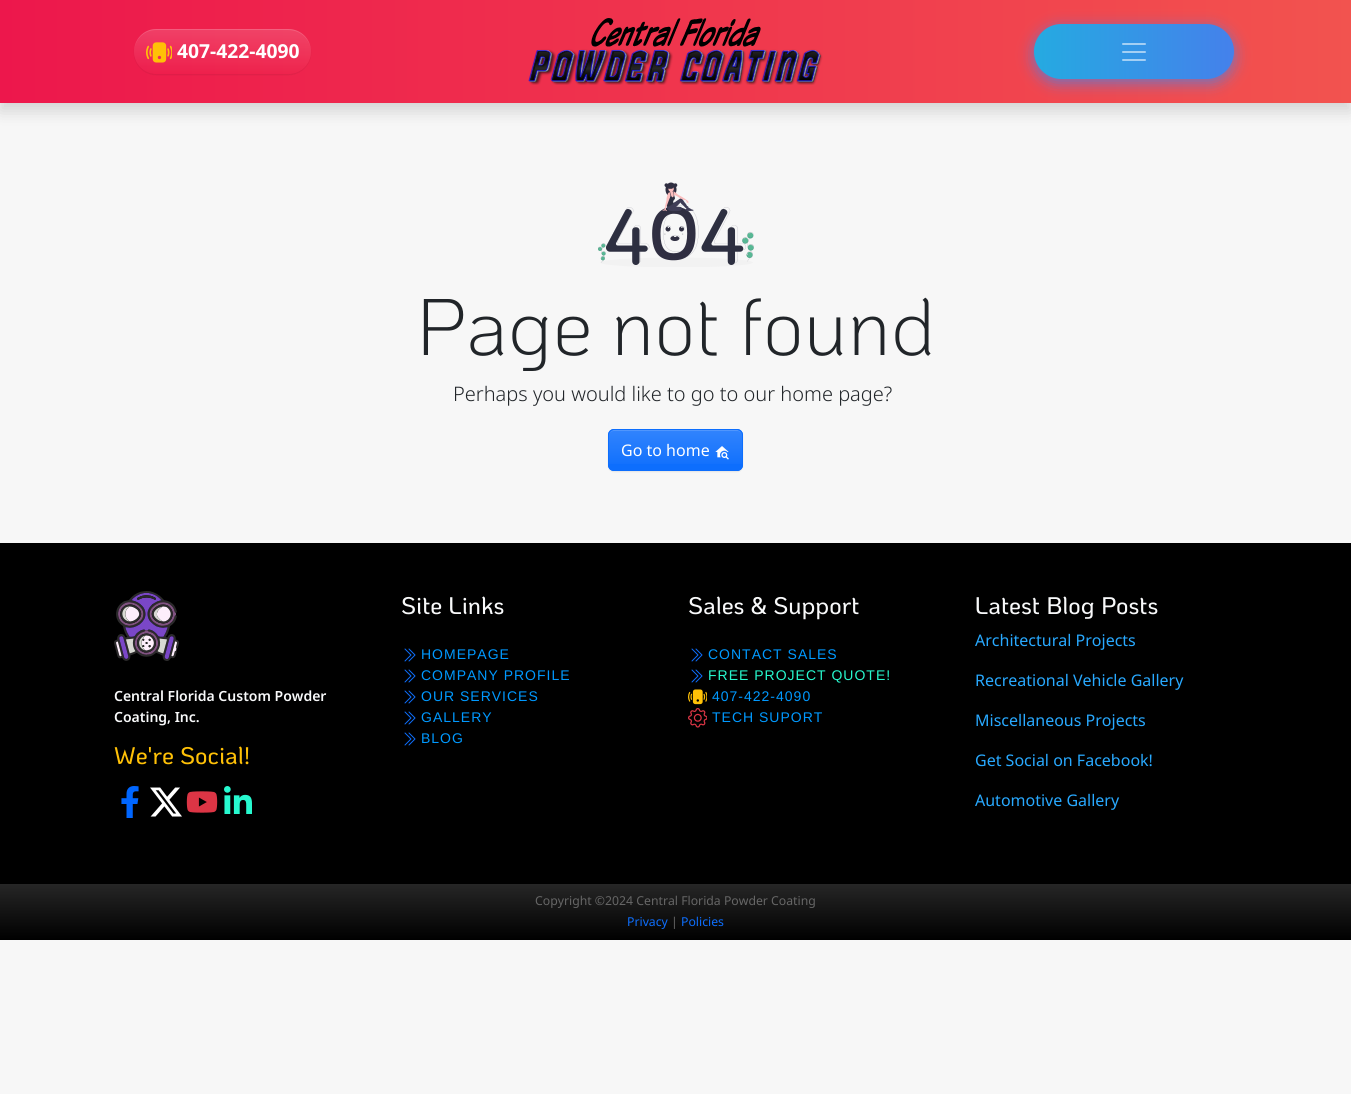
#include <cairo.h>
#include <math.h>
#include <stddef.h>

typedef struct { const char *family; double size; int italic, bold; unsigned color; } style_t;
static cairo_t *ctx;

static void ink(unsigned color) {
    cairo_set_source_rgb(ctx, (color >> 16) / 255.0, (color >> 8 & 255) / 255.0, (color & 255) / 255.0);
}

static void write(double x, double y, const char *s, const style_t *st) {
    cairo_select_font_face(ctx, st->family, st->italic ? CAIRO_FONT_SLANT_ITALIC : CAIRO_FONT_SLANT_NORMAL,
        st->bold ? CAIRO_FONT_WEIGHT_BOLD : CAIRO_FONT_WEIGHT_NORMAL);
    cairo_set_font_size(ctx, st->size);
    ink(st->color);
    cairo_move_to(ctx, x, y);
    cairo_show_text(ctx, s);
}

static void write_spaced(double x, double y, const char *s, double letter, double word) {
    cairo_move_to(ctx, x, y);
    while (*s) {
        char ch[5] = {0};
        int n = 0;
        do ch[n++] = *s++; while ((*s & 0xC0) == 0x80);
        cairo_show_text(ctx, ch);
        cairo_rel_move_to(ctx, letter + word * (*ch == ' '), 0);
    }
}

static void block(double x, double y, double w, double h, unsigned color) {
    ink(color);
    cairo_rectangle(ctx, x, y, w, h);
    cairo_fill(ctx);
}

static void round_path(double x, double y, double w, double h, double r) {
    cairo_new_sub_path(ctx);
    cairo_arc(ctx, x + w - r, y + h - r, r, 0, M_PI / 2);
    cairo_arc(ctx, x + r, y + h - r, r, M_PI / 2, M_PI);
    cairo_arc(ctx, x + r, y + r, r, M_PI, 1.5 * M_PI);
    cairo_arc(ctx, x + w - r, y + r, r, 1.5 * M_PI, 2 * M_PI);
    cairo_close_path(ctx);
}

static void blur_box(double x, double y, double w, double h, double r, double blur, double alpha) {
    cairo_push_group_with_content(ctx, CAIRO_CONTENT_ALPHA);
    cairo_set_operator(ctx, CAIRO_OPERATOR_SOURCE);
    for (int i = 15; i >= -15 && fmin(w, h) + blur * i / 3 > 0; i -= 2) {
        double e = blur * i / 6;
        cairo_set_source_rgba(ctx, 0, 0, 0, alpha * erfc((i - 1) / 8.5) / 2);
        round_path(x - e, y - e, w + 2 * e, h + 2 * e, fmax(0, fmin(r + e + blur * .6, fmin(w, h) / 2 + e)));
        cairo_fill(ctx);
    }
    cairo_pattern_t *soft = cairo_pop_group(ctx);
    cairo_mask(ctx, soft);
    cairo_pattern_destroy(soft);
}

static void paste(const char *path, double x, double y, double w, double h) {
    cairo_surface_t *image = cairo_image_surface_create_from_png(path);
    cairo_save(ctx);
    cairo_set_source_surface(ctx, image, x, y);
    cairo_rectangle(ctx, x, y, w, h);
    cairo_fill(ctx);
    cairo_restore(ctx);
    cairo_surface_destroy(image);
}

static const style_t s1 = {"Noto Sans", 19.25, 0, 1, 0xffffff};
static const style_t s2 = {"KoHo Light", 80, 0, 0, 0x212529};
static const style_t s3 = {"Noto Sans Light", 20, 0, 0, 0x212529};
static const style_t s4 = {"Noto Sans", 16, 0, 0, 0xffffff};
static const style_t s5 = {"Noto Sans SemiBold", 14, 0, 0, 0xf8f9fa};
static const style_t s6 = {"KoHo Medium", 24, 0, 0, 0xffc107};
static const style_t s7 = {"KoHo Medium", 24, 0, 0, 0xf8f9fa};
static const style_t s8 = {"Noto Sans", 16, 0, 0, 0x28a9ff};
static const style_t s9 = {"Noto Sans", 12.25, 0, 0, 0x666666};
static const style_t s10 = {"Noto Sans", 12.25, 0, 0, 0x0d6efd};

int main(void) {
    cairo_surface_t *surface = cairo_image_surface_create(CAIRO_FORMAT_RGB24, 1351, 1094);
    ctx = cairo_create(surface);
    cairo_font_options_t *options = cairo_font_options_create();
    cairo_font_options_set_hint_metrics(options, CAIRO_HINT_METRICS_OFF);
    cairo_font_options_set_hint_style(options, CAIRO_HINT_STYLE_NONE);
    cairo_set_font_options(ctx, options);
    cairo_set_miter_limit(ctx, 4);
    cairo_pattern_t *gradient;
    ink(0xf7f7f7);
    cairo_paint(ctx);
    ink(0x000000);
    blur_box(0, 8, 1351, 103, 0, 8, 0.15);
    gradient = cairo_pattern_create_linear(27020, 1030, 0, 1030);
    cairo_pattern_add_color_stop_rgba(gradient, 0, 0.929, 0.09, 0.298, 1);
    cairo_pattern_add_color_stop_rgba(gradient, 0.17, 0.824, 0.412, 0.663, 1);
    cairo_pattern_add_color_stop_rgba(gradient, 0.33, 0, 0.463, 0.753, 1);
    cairo_pattern_add_color_stop_rgba(gradient, 0.5, 0, 0.714, 0.725, 1);
    cairo_pattern_add_color_stop_rgba(gradient, 0.67, 0.447, 0.753, 0.341, 1);
    cairo_pattern_add_color_stop_rgba(gradient, 0.83, 1, 0.89, 0.333, 1);
    cairo_pattern_add_color_stop_rgba(gradient, 1, 0.929, 0.09, 0.298, 1);
    cairo_set_source(ctx, gradient);
    cairo_pattern_destroy(gradient);
    cairo_rectangle(ctx, 0, 0, 1351, 103);
    cairo_fill(ctx);
    cairo_save(ctx);
    cairo_set_fill_rule(ctx, CAIRO_FILL_RULE_EVEN_ODD);
    cairo_new_path(ctx);
    cairo_move_to(ctx, 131, 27);
    cairo_line_to(ctx, 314, 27);
    cairo_line_to(ctx, 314, 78);
    cairo_line_to(ctx, 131, 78);
    cairo_close_path(ctx);
    cairo_move_to(ctx, 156.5, 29);
    cairo_line_to(ctx, 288.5, 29);
    cairo_curve_to(ctx, 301, 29, 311, 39, 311, 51.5);
    cairo_curve_to(ctx, 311, 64, 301, 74, 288.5, 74);
    cairo_line_to(ctx, 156.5, 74);
    cairo_curve_to(ctx, 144, 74, 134, 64, 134, 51.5);
    cairo_curve_to(ctx, 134, 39, 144, 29, 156.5, 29);
    cairo_close_path(ctx);
    cairo_clip(ctx);
    ink(0x000000);
    blur_box(134, 30, 177, 45, 22.5, 0.5, 0.07);
    cairo_restore(ctx);
    gradient = cairo_pattern_create_linear(400, 29, 400, 74);
    cairo_pattern_add_color_stop_rgba(gradient, 0, 1, 1, 1, 0.15);
    cairo_pattern_add_color_stop_rgba(gradient, 1, 1, 1, 1, 0);
    cairo_set_source(ctx, gradient);
    cairo_pattern_destroy(gradient);
    round_path(134, 29, 177, 45, 22.5);
    cairo_fill(ctx);
    cairo_set_source_rgba(ctx, 1, 1, 1, 0.15);
    cairo_new_path(ctx);
    cairo_move_to(ctx, 156, 30);
    cairo_line_to(ctx, 288, 30);
    cairo_curve_to(ctx, 301, 30, 311, 40, 311, 52);
    cairo_curve_to(ctx, 311, 39, 301, 29, 288, 29);
    cairo_line_to(ctx, 156, 29);
    cairo_curve_to(ctx, 144, 29, 134, 39, 134, 52);
    cairo_curve_to(ctx, 134, 40, 144, 30, 156, 30);
    cairo_close_path(ctx);
    cairo_fill(ctx);
    paste("pic1.png", 146, 42, 26, 21);
    write(177, 58, "407-422-4090", &s1);
    paste("pic2.png", 528, 18, 295, 67);
    ink(0x4184ea);
    blur_box(1034, 28, 200, 55, 27.5, 7.5, 0.75);
    gradient = cairo_pattern_create_linear(1034, 52, 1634, 51);
    cairo_pattern_add_color_stop_rgba(gradient, 0, 0.145, 0.667, 0.882, 1);
    cairo_pattern_add_color_stop_rgba(gradient, 0.33, 0.267, 0.506, 0.922, 1);
    cairo_pattern_add_color_stop_rgba(gradient, 0.67, 0.016, 0.745, 0.996, 1);
    cairo_pattern_add_color_stop_rgba(gradient, 1, 0.247, 0.525, 0.929, 1);
    cairo_set_source(ctx, gradient);
    cairo_pattern_destroy(gradient);
    round_path(1034, 24, 200, 55, 27.5);
    cairo_fill(ctx);
    paste("pic3.png", 1122, 43, 24, 18);
    paste("pic4.png", 598, 182, 156, 85);
    write(416, 355, "Page not found", &s2);
    write(453, 401, "Perhaps you would like to go to our home page?", &s3);
    ink(0x000000);
    blur_box(608, 430, 135, 42, 6, 0.5, 0.07);
    ink(0x0d6efd);
    round_path(608, 429, 135, 42, 6);
    cairo_fill(ctx);
    cairo_save(ctx);
    round_path(608, 429, 135, 42, 6);
    cairo_clip(ctx);
    gradient = cairo_pattern_create_linear(676, 430, 676, 470);
    cairo_pattern_add_color_stop_rgba(gradient, 0, 1, 1, 1, 0.15);
    cairo_pattern_add_color_stop_rgba(gradient, 1, 1, 1, 1, 0);
    cairo_set_source(ctx, gradient);
    cairo_pattern_destroy(gradient);
    cairo_rectangle(ctx, 608, 430, 135, 34);
    cairo_fill(ctx);
    cairo_restore(ctx);
    cairo_set_source_rgba(ctx, 1, 1, 1, 0.15);
    cairo_new_path(ctx);
    cairo_move_to(ctx, 614, 431);
    cairo_line_to(ctx, 737, 431);
    cairo_curve_to(ctx, 740, 431, 742, 433, 742, 436);
    cairo_curve_to(ctx, 742, 425, 720, 430, 716, 430);
    cairo_line_to(ctx, 634, 430);
    cairo_curve_to(ctx, 631, 430, 609, 425, 609, 436);
    cairo_curve_to(ctx, 609, 433, 611, 431, 614, 431);
    cairo_close_path(ctx);
    cairo_fill(ctx);
    round_path(608.5, 429.5, 134, 41, 5.5);
    ink(0x0d6efd);
    cairo_set_line_width(ctx, 1);
    cairo_stroke(ctx);
    write(621, 456, "Go to home", &s4);
    paste("pic5.png", 715, 446, 14, 14);
    block(0, 543, 1351, 341, 0x000000);
    paste("pic6.png", 114, 591, 65, 70);
    write(114, 701, "Central Florida Custom Powder", &s5);
    write(114, 722, "Coating, Inc.", &s5);
    write(114, 764, "We're Social!", &s6);
    paste("pic7.png", 121, 786, 18, 32);
    paste("pic8.png", 150, 787, 32, 30);
    paste("pic9.png", 186, 791, 32, 22);
    paste("pic10.png", 224, 786, 28, 28);
    write(401, 614, "Site Links", &s7);
    paste("pic11.png", 404, 648, 12, 14);
    cairo_select_font_face(ctx, "Liberation Sans", CAIRO_FONT_SLANT_NORMAL, CAIRO_FONT_WEIGHT_NORMAL);
    cairo_set_font_size(ctx, 14);
    ink(0x0099ff);
    write_spaced(421, 659, "HOMEPAGE", 1, 0);
    paste("pic11.png", 404, 669, 12, 14);
    write_spaced(421, 680, "COMPANY PROFILE", 1, 0);
    paste("pic11.png", 404, 690, 12, 14);
    write_spaced(421, 701, "OUR SERVICES", 1, 0);
    paste("pic11.png", 404, 711, 12, 14);
    write_spaced(421, 722, "GALLERY", 1, 0);
    paste("pic11.png", 404, 732, 12, 14);
    write_spaced(421, 743, "BLOG", 1, 0);
    write(688, 614, "Sales & Support", &s7);
    paste("pic11.png", 691, 648, 12, 14);
    cairo_select_font_face(ctx, "Liberation Sans", CAIRO_FONT_SLANT_NORMAL, CAIRO_FONT_WEIGHT_NORMAL);
    cairo_set_font_size(ctx, 14);
    ink(0x0099ff);
    write_spaced(708, 659, "CONTACT SALES", 1, 0);
    paste("pic11.png", 691, 669, 12, 14);
    ink(0x27f9cf);
    write_spaced(708, 680, "FREE PROJECT QUOTE!", 1, 0);
    paste("pic12.png", 688, 689, 19, 16);
    ink(0x0099ff);
    write_spaced(712, 701, "407-422-4090", 1, 0);
    paste("pic13.png", 688, 708, 19, 20);
    write_spaced(712, 722, "TECH SUPORT", 1, 0);
    write(975, 614, "Latest Blog Posts", &s7);
    write(975, 646, "Architectural Projects", &s8);
    write(975, 686, "Recreational Vehicle Gallery", &s8);
    write(975, 726, "Miscellaneous Projects", &s8);
    write(975, 766, "Get Social on Facebook!", &s8);
    write(975, 806, "Automotive Gallery", &s8);
    gradient = cairo_pattern_create_linear(676, 884, 676, 940);
    cairo_pattern_add_color_stop_rgba(gradient, 0, 0.149, 0.149, 0.149, 1);
    cairo_pattern_add_color_stop_rgba(gradient, 1, 0, 0, 0, 1);
    cairo_set_source(ctx, gradient);
    cairo_pattern_destroy(gradient);
    cairo_rectangle(ctx, 0, 884, 1351, 56);
    cairo_fill(ctx);
    write(535, 905, "Copyright ©2024 Central Florida Powder Coating", &s9);
    write(627, 926, "Privacy", &s10);
    write(671, 926, "|", &s9);
    write(681, 926, "Policies", &s10);
    cairo_surface_write_to_png(surface, "screenshot.png");
    cairo_font_options_destroy(options);
    cairo_destroy(ctx);
    cairo_surface_destroy(surface);
    return 0;
}
